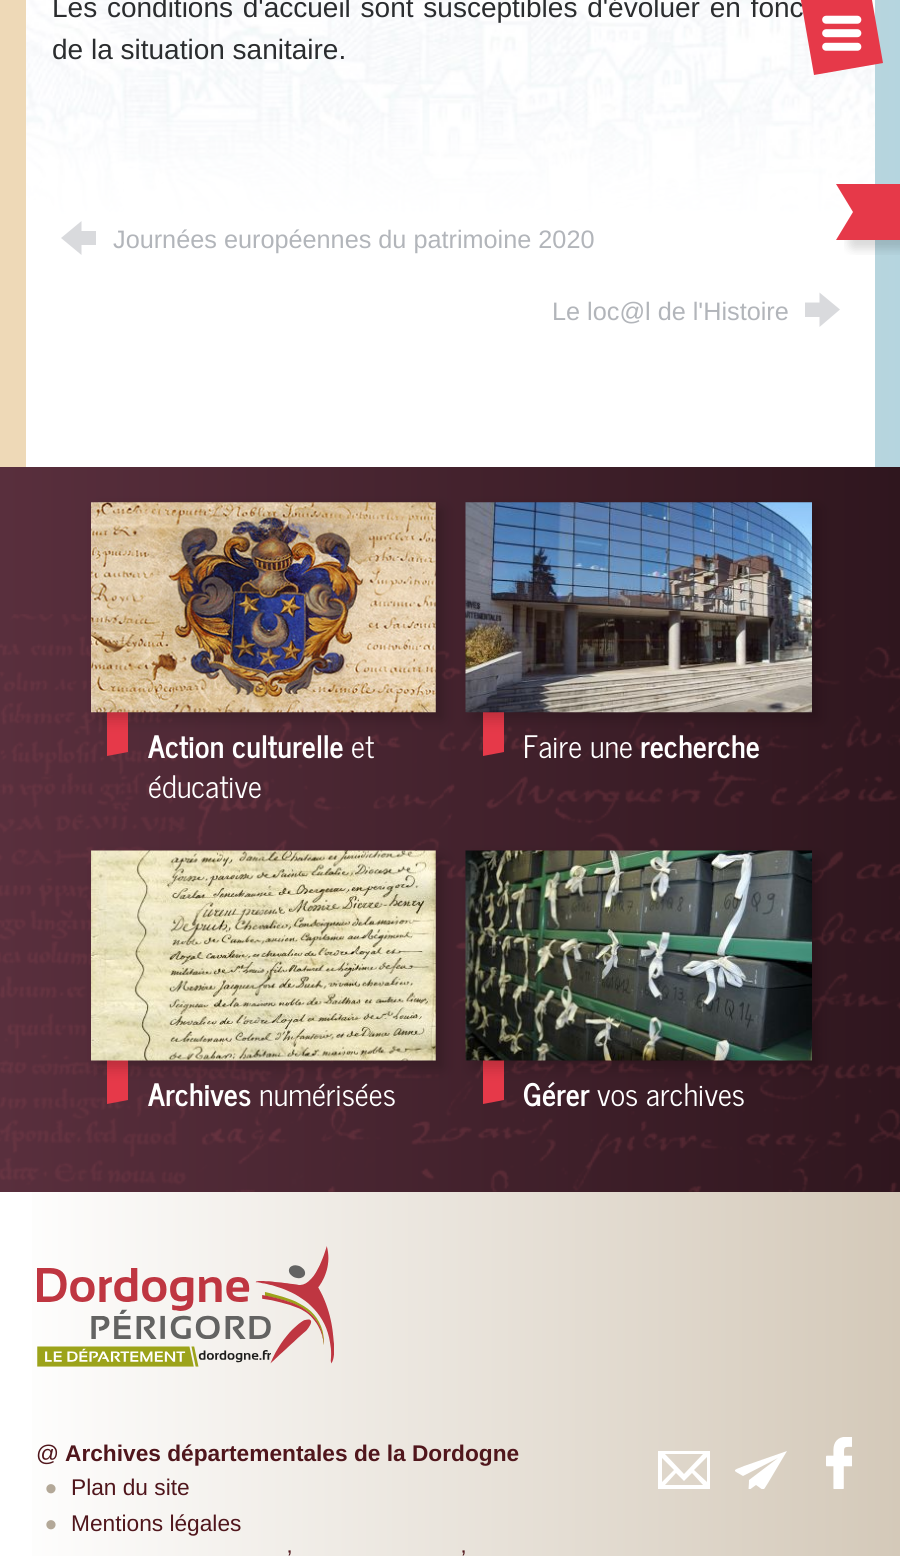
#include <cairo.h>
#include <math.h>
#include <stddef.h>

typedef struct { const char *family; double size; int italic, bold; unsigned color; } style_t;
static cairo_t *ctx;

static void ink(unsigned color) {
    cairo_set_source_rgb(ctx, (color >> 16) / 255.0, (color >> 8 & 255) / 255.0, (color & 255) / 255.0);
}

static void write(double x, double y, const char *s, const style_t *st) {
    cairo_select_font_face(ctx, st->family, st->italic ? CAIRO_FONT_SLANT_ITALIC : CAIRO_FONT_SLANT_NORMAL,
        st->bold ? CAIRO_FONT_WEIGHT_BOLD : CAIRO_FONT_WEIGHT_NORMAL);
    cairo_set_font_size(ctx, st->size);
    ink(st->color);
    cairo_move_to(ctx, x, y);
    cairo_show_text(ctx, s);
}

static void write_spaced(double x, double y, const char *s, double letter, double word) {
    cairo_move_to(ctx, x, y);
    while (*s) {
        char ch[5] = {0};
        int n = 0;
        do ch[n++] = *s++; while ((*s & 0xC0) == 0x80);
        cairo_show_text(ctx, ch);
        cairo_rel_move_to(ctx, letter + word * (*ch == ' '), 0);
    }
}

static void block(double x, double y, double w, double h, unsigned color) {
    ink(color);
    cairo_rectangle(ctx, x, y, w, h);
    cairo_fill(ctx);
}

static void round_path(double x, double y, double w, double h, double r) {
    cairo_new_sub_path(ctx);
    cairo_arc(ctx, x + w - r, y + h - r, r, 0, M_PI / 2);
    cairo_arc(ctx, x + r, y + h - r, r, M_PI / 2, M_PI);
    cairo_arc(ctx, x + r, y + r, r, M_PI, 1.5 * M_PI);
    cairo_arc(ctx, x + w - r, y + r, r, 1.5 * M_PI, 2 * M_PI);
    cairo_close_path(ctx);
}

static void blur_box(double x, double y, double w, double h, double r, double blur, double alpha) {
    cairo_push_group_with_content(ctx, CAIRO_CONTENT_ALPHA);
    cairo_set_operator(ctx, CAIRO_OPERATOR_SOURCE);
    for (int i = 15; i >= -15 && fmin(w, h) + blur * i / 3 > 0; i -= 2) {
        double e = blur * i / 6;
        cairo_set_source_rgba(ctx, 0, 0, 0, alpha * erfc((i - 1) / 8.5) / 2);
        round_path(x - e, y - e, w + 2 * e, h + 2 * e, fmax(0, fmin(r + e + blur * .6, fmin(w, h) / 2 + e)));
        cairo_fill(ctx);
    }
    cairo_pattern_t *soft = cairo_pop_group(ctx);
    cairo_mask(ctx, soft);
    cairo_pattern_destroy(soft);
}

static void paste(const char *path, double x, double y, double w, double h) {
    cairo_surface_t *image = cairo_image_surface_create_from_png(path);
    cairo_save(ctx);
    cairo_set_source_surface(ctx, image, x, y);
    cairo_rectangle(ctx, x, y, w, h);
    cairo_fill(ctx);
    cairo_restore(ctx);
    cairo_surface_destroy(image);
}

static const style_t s1 = {"Liberation Sans", 28, 0, 0, 0x2b2d2f};
static const style_t s2 = {"Liberation Sans", 25.25, 0, 0, 0xb2b5ba};
static const style_t s3 = {"News Cycle", 30.75, 0, 1, 0xffffff};
static const style_t s4 = {"News Cycle", 30.75, 0, 0, 0xffffff};
static const style_t s5 = {"Liberation Sans", 22.7, 0, 0, 0x50161c};
static const style_t s6 = {"Liberation Sans", 22.7, 0, 1, 0x50161c};
static const style_t s7 = {"Liberation Sans", 34, 0, 0, 0xb3a898};

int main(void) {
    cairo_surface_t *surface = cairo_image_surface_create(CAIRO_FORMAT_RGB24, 900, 1556);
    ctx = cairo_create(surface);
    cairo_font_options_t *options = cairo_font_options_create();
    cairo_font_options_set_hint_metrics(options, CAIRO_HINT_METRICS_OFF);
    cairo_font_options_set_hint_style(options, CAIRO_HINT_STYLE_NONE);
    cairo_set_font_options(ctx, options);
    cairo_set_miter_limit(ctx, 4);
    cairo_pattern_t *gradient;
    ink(0xffffff);
    cairo_paint(ctx);
    gradient = cairo_pattern_create_linear(0, 253, 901, 253);
    cairo_pattern_add_color_stop_rgba(gradient, 0.14, 0.933, 0.851, 0.718, 1);
    cairo_pattern_add_color_stop_rgba(gradient, 1, 0.71, 0.835, 0.875, 1);
    cairo_set_source(ctx, gradient);
    cairo_pattern_destroy(gradient);
    cairo_rectangle(ctx, 0, 0, 900, 467);
    cairo_fill(ctx);
    block(26, 0, 1, 220, 0xffffff);
    paste("pic1.png", 26, 0, 849, 220);
    cairo_select_font_face(ctx, "Liberation Sans", CAIRO_FONT_SLANT_NORMAL, CAIRO_FONT_WEIGHT_NORMAL);
    cairo_set_font_size(ctx, 28);
    ink(0x2b2d2f);
    write_spaced(52, 17, "Les conditions d'accueil sont susceptibles d'évoluer en fonc", 0, 2);
    write(52, 59, "de la situation sanitaire.", &s1);
    gradient = cairo_pattern_create_linear(451, 221, 451, 98);
    cairo_pattern_add_color_stop_rgba(gradient, 0, 1, 1, 1, 1);
    cairo_pattern_add_color_stop_rgba(gradient, 1, 1, 1, 1, 0);
    cairo_set_source(ctx, gradient);
    cairo_pattern_destroy(gradient);
    cairo_rectangle(ctx, 26, 122, 849, 99);
    cairo_fill(ctx);
    block(26, 221, 849, 246, 0xffffff);
    ink(0xd9dadd);
    cairo_new_path(ctx);
    cairo_move_to(ctx, 81.5, 245);
    cairo_line_to(ctx, 96, 245);
    cairo_line_to(ctx, 96, 231);
    cairo_line_to(ctx, 81.5, 231);
    cairo_line_to(ctx, 81.5, 221);
    cairo_line_to(ctx, 61, 238);
    cairo_line_to(ctx, 81.5, 255);
    cairo_line_to(ctx, 81.5, 245);
    cairo_fill(ctx);
    write(113, 248, "Journées européennes du patrimoine 2020", &s2);
    write(552, 320, "Le loc@l de l'Histoire", &s2);
    ink(0xd9dadd);
    cairo_new_path(ctx);
    cairo_move_to(ctx, 819.5, 317);
    cairo_line_to(ctx, 819.5, 327);
    cairo_line_to(ctx, 840, 309.5);
    cairo_line_to(ctx, 819.5, 292.5);
    cairo_line_to(ctx, 819.5, 302.5);
    cairo_line_to(ctx, 805, 302.5);
    cairo_line_to(ctx, 805, 317);
    cairo_line_to(ctx, 819.5, 317);
    cairo_fill(ctx);
    ink(0xe63949);
    cairo_new_path(ctx);
    cairo_move_to(ctx, 796, -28);
    cairo_line_to(ctx, 865, -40);
    cairo_line_to(ctx, 883, 63);
    cairo_line_to(ctx, 814, 75);
    cairo_close_path(ctx);
    cairo_fill(ctx);
    paste("pic2.png", 822, 15, 40, 36);
    cairo_save(ctx);
    cairo_rectangle(ctx, 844, 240, 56, 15);
    cairo_clip(ctx);
    ink(0x000000);
    blur_box(849, 193, 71, 56, 5, 5, 0.15);
    cairo_restore(ctx);
    cairo_new_path(ctx);
    cairo_move_to(ctx, 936, 240);
    cairo_line_to(ctx, 836, 240);
    cairo_line_to(ctx, 853, 212);
    cairo_line_to(ctx, 836, 184);
    cairo_line_to(ctx, 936, 184);
    cairo_close_path(ctx);
    cairo_fill(ctx);
    gradient = cairo_pattern_create_linear(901, 829, 0, 830);
    cairo_pattern_add_color_stop_rgba(gradient, 0, 0.184, 0.086, 0.118, 1);
    cairo_pattern_add_color_stop_rgba(gradient, 1, 0.349, 0.184, 0.239, 1);
    cairo_set_source(ctx, gradient);
    cairo_pattern_destroy(gradient);
    cairo_rectangle(ctx, 0, 467, 900, 725);
    cairo_fill(ctx);
    paste("pic3.png", 0, 614, 900, 578);
    ink(0xe63949);
    cairo_set_fill_rule(ctx, CAIRO_FILL_RULE_EVEN_ODD);
    cairo_new_path(ctx);
    cairo_move_to(ctx, 107, 677);
    cairo_line_to(ctx, 128, 677);
    cairo_line_to(ctx, 128, 752);
    cairo_line_to(ctx, 107, 756);
    cairo_close_path(ctx);
    cairo_fill(ctx);
    ink(0x000000);
    blur_box(98, 509, 345, 210, 0, 7, 0.2);
    paste("pic4.png", 91, 502, 345, 211);
    write(148, 758, "Action culturelle", &s3);
    write(351, 758, "et", &s4);
    write(148, 798, "éducative", &s4);
    ink(0xe63949);
    cairo_new_path(ctx);
    cairo_move_to(ctx, 483, 677);
    cairo_line_to(ctx, 504, 677);
    cairo_line_to(ctx, 504, 752);
    cairo_line_to(ctx, 483, 756);
    cairo_close_path(ctx);
    cairo_fill(ctx);
    ink(0x000000);
    blur_box(473, 509, 346, 210, 0, 7, 0.2);
    paste("pic5.png", 465, 502, 347, 211);
    write(523, 758, "Faire une", &s4);
    write(640, 758, "recherche", &s3);
    ink(0xe63949);
    cairo_new_path(ctx);
    cairo_move_to(ctx, 107, 1026);
    cairo_line_to(ctx, 128, 1026);
    cairo_line_to(ctx, 128, 1100);
    cairo_line_to(ctx, 107, 1104);
    cairo_close_path(ctx);
    cairo_fill(ctx);
    ink(0x000000);
    blur_box(98, 858, 345, 210, 0, 7, 0.2);
    paste("pic6.png", 91, 850, 345, 211);
    write(148, 1106, "Archives", &s3);
    write(259, 1106, "numérisées", &s4);
    ink(0xe63949);
    cairo_new_path(ctx);
    cairo_move_to(ctx, 483, 1026);
    cairo_line_to(ctx, 504, 1026);
    cairo_line_to(ctx, 504, 1100);
    cairo_line_to(ctx, 483, 1104);
    cairo_close_path(ctx);
    cairo_fill(ctx);
    ink(0x000000);
    blur_box(473, 858, 346, 210, 0, 7, 0.2);
    paste("pic7.png", 465, 850, 347, 211);
    write(523, 1106, "Gérer", &s3);
    write(597, 1106, "vos archives", &s4);
    gradient = cairo_pattern_create_linear(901, 1531, 0, 1531);
    cairo_pattern_add_color_stop_rgba(gradient, 0, 0.831, 0.788, 0.725, 1);
    cairo_pattern_add_color_stop_rgba(gradient, 1, 1, 1, 1, 1);
    cairo_set_source(ctx, gradient);
    cairo_pattern_destroy(gradient);
    cairo_rectangle(ctx, 32, 1192, 868, 364);
    cairo_fill(ctx);
    paste("pic8.png", 37, 1246, 297, 121);
    write(36, 1461, "@", &s5);
    write(65, 1461, "Archives départementales de la Dordogne", &s6);
    write(45, 1500, "•", &s7);
    write(71, 1495, "Plan du site", &s5);
    write(45, 1536, "•", &s7);
    write(71, 1531, "Mentions légales", &s5);
    write(287, 1566, "’", &s5);
    write(461, 1566, "’", &s5);
    ink(0xffffff);
    cairo_set_fill_rule(ctx, CAIRO_FILL_RULE_WINDING);
    cairo_new_path(ctx);
    cairo_move_to(ctx, 710, 1489);
    cairo_line_to(ctx, 658, 1489);
    cairo_line_to(ctx, 658, 1451);
    cairo_line_to(ctx, 710, 1451);
    cairo_close_path(ctx);
    cairo_move_to(ctx, 662, 1458);
    cairo_line_to(ctx, 662, 1482);
    cairo_line_to(ctx, 674, 1470);
    cairo_close_path(ctx);
    cairo_move_to(ctx, 684, 1474);
    cairo_line_to(ctx, 703, 1454);
    cairo_line_to(ctx, 665, 1454);
    cairo_close_path(ctx);
    cairo_move_to(ctx, 703, 1485);
    cairo_line_to(ctx, 692, 1473);
    cairo_line_to(ctx, 684, 1481);
    cairo_line_to(ctx, 676, 1473);
    cairo_line_to(ctx, 665, 1485);
    cairo_close_path(ctx);
    cairo_move_to(ctx, 694, 1470);
    cairo_line_to(ctx, 707, 1482);
    cairo_line_to(ctx, 707, 1457);
    cairo_close_path(ctx);
    cairo_fill(ctx);
    cairo_save(ctx);
    cairo_rectangle(ctx, 735, 1451, 53, 38);
    cairo_clip(ctx);
    cairo_new_path(ctx);
    cairo_move_to(ctx, 787, 1451);
    cairo_line_to(ctx, 744, 1466);
    cairo_curve_to(ctx, 731, 1471, 733, 1470, 743, 1476);
    cairo_line_to(ctx, 778, 1458);
    cairo_line_to(ctx, 749, 1480);
    cairo_curve_to(ctx, 749, 1492, 746, 1492, 756, 1485);
    cairo_curve_to(ctx, 765, 1491, 762, 1492, 768, 1483);
    cairo_close_path(ctx);
    cairo_fill(ctx);
    cairo_restore(ctx);
    paste("pic9.png", 826, 1437, 26, 52);
    cairo_surface_write_to_png(surface, "screenshot.png");
    cairo_font_options_destroy(options);
    cairo_destroy(ctx);
    cairo_surface_destroy(surface);
    return 0;
}
